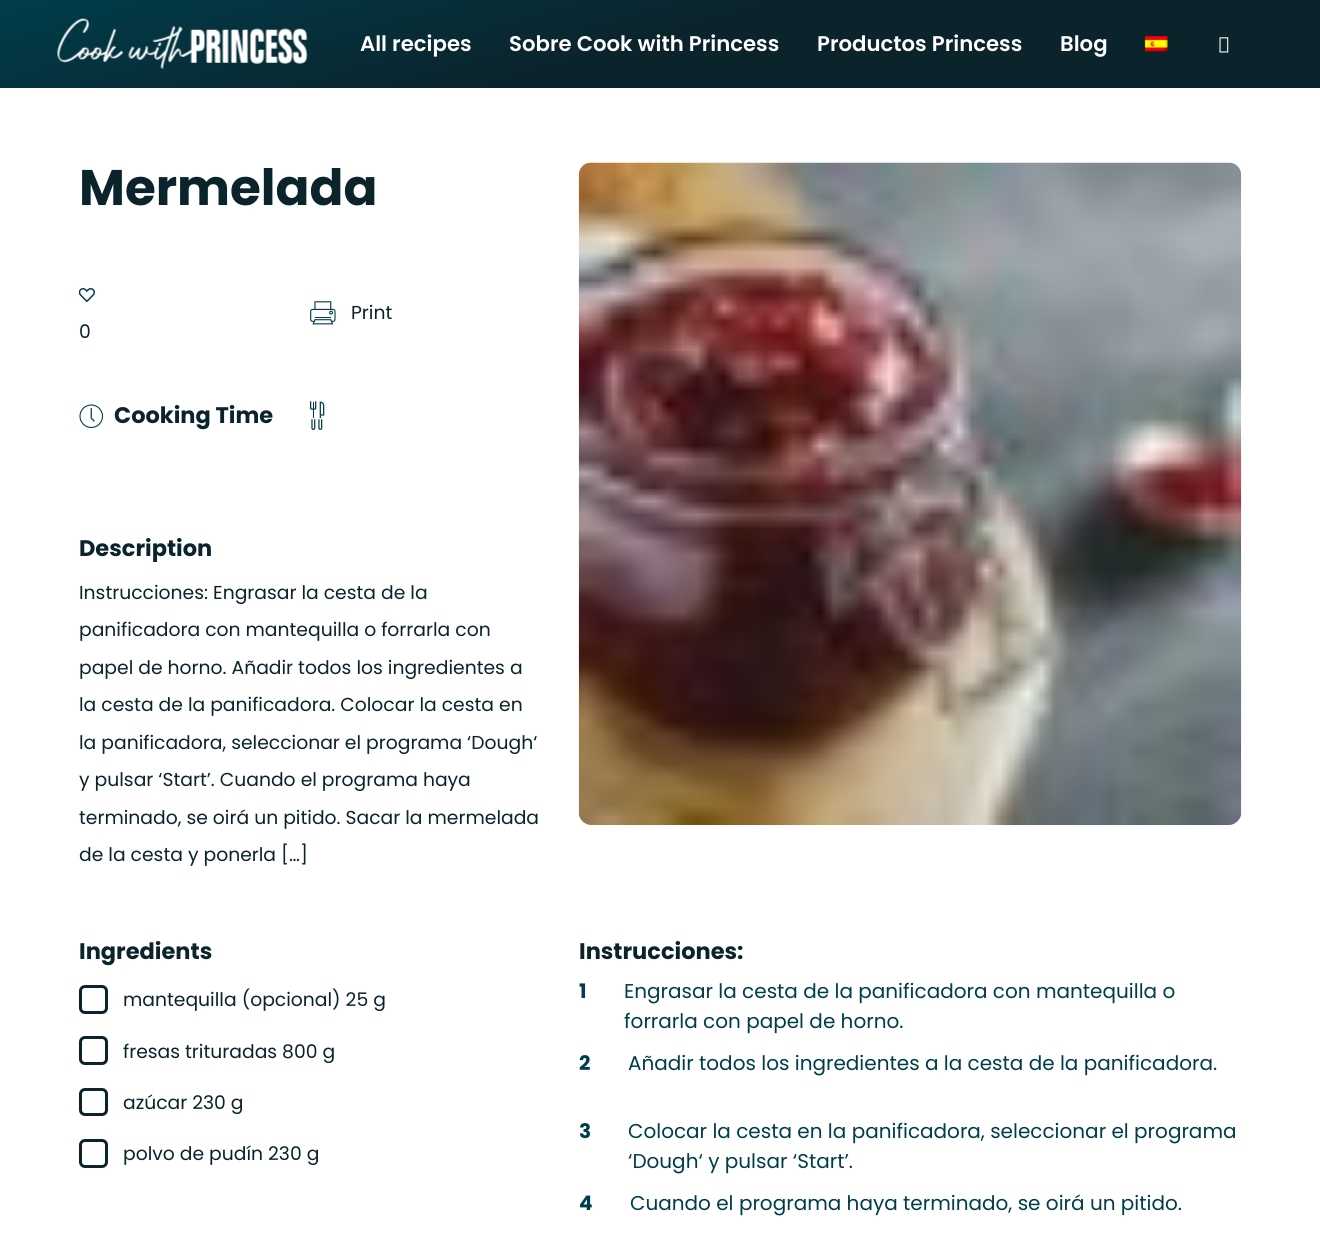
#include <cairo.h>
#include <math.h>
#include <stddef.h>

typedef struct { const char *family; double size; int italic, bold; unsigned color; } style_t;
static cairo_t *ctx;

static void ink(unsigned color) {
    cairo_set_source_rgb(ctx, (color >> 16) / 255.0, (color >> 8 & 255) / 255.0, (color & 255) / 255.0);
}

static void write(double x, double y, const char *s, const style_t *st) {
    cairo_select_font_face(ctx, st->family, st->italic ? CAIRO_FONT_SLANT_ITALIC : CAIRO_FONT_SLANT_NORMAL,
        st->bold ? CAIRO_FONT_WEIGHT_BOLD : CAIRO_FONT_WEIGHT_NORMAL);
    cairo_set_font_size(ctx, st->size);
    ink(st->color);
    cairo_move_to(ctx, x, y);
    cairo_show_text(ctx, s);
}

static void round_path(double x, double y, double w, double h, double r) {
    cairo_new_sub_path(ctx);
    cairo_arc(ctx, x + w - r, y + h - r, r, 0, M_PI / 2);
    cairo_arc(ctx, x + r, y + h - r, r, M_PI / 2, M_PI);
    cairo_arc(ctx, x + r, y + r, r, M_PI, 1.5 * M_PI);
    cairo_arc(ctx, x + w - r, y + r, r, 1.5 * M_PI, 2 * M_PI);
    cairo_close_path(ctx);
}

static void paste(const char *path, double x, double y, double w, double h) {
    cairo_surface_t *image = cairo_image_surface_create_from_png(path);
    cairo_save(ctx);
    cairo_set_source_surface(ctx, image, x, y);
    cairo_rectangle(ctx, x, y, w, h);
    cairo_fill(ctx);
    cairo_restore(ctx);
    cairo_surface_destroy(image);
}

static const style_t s1 = {"Poppins SemiBold", 21.25, 0, 0, 0xffffff};
static const style_t s2 = {"Poppins", 50, 0, 1, 0x0b232b};
static const style_t s3 = {"Poppins", 18.75, 0, 0, 0x0b232b};
static const style_t s4 = {"Poppins", 22.5, 0, 1, 0x0b232b};
static const style_t s5 = {"Poppins", 20, 0, 1, 0x003d4b};
static const style_t s6 = {"Poppins", 20, 0, 0, 0x003d4b};

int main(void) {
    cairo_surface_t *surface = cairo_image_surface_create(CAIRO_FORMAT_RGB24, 1320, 1244);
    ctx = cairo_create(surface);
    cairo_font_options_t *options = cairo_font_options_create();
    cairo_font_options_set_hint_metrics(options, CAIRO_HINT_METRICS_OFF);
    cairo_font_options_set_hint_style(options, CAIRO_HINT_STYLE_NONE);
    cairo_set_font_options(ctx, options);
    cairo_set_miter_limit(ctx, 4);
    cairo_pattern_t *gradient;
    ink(0xffffff);
    cairo_paint(ctx);
    gradient = cairo_pattern_create_linear(598, -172, 722, 259);
    cairo_pattern_add_color_stop_rgba(gradient, 0, 0, 0.239, 0.294, 1);
    cairo_pattern_add_color_stop_rgba(gradient, 0.5, 0.043, 0.137, 0.169, 1);
    cairo_set_source(ctx, gradient);
    cairo_pattern_destroy(gradient);
    cairo_rectangle(ctx, 0, 0, 1320, 88);
    cairo_fill(ctx);
    paste("pic1.png", 57, 18, 251, 51);
    write(360, 51, "All recipes", &s1);
    write(509, 51, "Sobre Cook with Princess", &s1);
    write(817, 51, "Productos Princess", &s1);
    write(1060, 51, "Blog", &s1);
    paste("pic2.png", 1144, 36, 24, 16);
    paste("pic3.png", 1219, 37, 10, 16);
    write(79, 205, "Mermelada", &s2);
    paste("pic4.png", 310, 301, 26, 24);
    write(351, 319, "Print", &s3);
    paste("pic5.png", 79, 288, 16, 14);
    write(79, 338, "0", &s3);
    paste("pic6.png", 79, 404, 24, 24);
    write(114, 423, "Cooking Time", &s4);
    paste("pic7.png", 310, 401, 15, 29);
    write(79, 556, "Description", &s4);
    write(79, 599, "Instrucciones: Engrasar la cesta de la", &s3);
    write(79, 636, "panificadora con mantequilla o forrarla con", &s3);
    write(79, 674, "papel de horno. Añadir todos los ingredientes a", &s3);
    write(79, 711, "la cesta de la panificadora. Colocar la cesta en", &s3);
    write(79, 749, "la panificadora, seleccionar el programa ‘Dough‘", &s3);
    write(79, 786, "y pulsar ‘Start’. Cuando el programa haya", &s3);
    write(79, 824, "terminado, se oirá un pitido. Sacar la mermelada", &s3);
    write(79, 861, "de la cesta y ponerla […]", &s3);
    paste("pic8.png", 578, 162, 664, 663);
    write(79, 959, "Ingredients", &s4);
    round_path(80.5, 986.5, 26, 26, 4.5);
    cairo_set_line_width(ctx, 3);
    cairo_stroke(ctx);
    write(123, 1006, "mantequilla (opcional) 25 g", &s3);
    round_path(80.5, 1037.5, 26, 26, 4.5);
    cairo_stroke(ctx);
    write(123, 1058, "fresas trituradas 800 g", &s3);
    round_path(80.5, 1089.5, 26, 25, 4.5);
    cairo_stroke(ctx);
    write(123, 1109, "azúcar 230 g", &s3);
    round_path(80.5, 1140.5, 26, 26, 4.5);
    cairo_stroke(ctx);
    write(123, 1160, "polvo de pudín 230 g", &s3);
    write(579, 959, "Instrucciones:", &s4);
    write(579, 998, "1", &s5);
    write(624, 998, "Engrasar la cesta de la panificadora con mantequilla o", &s6);
    write(624, 1028, "forrarla con papel de horno.", &s6);
    write(579, 1070, "2", &s5);
    write(628, 1070, "Añadir todos los ingredientes a la cesta de la panificadora.", &s6);
    write(579, 1138, "3", &s5);
    write(628, 1138, "Colocar la cesta en la panificadora, seleccionar el programa", &s6);
    write(628, 1168, "‘Dough‘ y pulsar ‘Start’.", &s6);
    write(579, 1210, "4", &s5);
    write(630, 1210, "Cuando el programa haya terminado, se oirá un pitido.", &s6);
    cairo_surface_write_to_png(surface, "screenshot.png");
    cairo_font_options_destroy(options);
    cairo_destroy(ctx);
    cairo_surface_destroy(surface);
    return 0;
}
